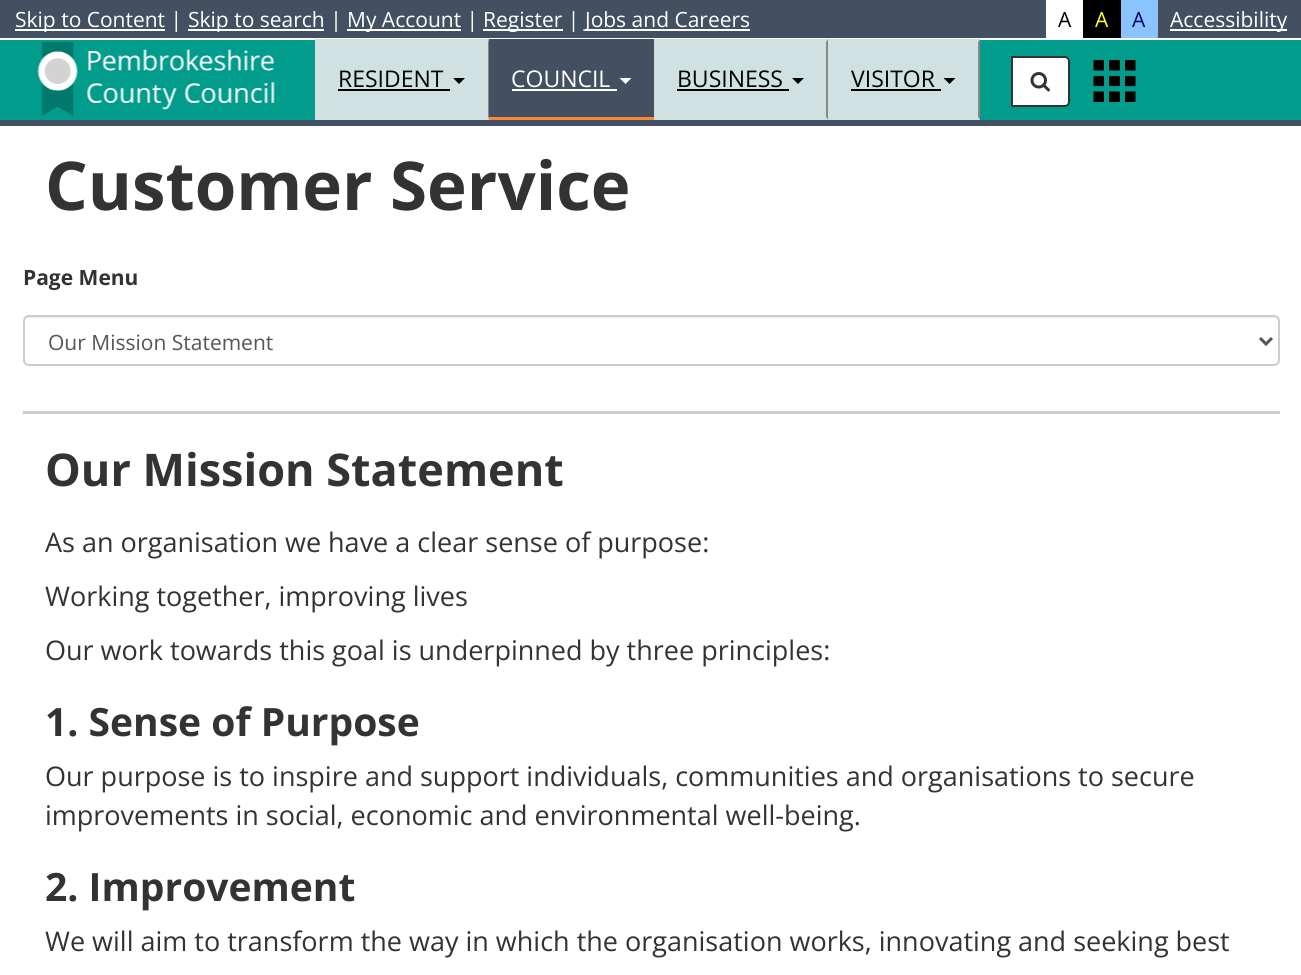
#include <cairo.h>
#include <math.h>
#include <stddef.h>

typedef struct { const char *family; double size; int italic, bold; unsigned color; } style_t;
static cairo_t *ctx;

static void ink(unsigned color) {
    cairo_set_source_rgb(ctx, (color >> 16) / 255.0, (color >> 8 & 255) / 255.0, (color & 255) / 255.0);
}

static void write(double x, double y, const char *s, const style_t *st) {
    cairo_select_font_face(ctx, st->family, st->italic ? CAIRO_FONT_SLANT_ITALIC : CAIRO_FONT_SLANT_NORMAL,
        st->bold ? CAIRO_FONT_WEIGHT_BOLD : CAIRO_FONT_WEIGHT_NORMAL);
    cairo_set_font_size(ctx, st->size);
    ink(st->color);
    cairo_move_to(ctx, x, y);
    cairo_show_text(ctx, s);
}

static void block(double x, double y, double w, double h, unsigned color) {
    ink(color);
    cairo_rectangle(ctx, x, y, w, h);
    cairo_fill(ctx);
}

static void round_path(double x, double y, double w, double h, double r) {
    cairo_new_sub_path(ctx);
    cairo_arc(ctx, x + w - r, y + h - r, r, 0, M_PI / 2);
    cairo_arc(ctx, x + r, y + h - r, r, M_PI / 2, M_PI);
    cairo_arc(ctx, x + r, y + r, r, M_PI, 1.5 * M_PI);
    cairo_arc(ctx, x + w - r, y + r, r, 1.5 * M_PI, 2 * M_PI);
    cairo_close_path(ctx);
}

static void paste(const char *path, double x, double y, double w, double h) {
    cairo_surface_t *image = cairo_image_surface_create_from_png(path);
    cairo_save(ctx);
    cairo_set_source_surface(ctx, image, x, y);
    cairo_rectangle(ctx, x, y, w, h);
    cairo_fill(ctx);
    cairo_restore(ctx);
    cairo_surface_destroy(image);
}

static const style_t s1 = {"Open Sans", 21, 0, 0, 0xffffff};
static const style_t s2 = {"Open Sans", 21, 0, 0, 0x000000};
static const style_t s3 = {"Open Sans", 21, 0, 0, 0xfcff2b};
static const style_t s4 = {"Open Sans", 21, 0, 0, 0x000066};
static const style_t s5 = {"Open Sans", 23, 0, 0, 0x000000};
static const style_t s6 = {"Open Sans", 23, 0, 0, 0xffffff};
static const style_t s7 = {"Open Sans", 67.25, 0, 1, 0x333333};
static const style_t s8 = {"Open Sans", 21, 0, 1, 0x333333};
static const style_t s9 = {"Open Sans", 21, 0, 0, 0x555555};
static const style_t s10 = {"Open Sans", 45, 0, 1, 0x333333};
static const style_t s11 = {"Open Sans", 27, 0, 0, 0x333333};
static const style_t s12 = {"Open Sans", 39, 0, 1, 0x333333};

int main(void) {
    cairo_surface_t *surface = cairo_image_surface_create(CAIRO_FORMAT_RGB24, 1301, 975);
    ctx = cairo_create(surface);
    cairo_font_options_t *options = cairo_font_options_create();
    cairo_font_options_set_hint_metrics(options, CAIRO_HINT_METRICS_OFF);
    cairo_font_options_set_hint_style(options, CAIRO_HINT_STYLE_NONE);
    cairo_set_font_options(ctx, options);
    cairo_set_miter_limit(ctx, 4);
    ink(0xffffff);
    cairo_paint(ctx);
    block(0, 40, 1301, 80, 0x019c8c);
    block(0, 120, 1301, 6, 0x435061);
    block(0, 0, 1301, 38, 0x435061);
    block(15, 29, 150, 2, 0xffffff);
    write(15, 27, "Skip to Content |", &s1);
    block(188, 29, 136, 2, 0xffffff);
    write(188, 27, "Skip to search |", &s1);
    block(347, 29, 114, 2, 0xffffff);
    write(347, 27, "My Account |", &s1);
    block(483, 29, 80, 2, 0xffffff);
    write(483, 27, "Register |", &s1);
    block(585, 29, 165, 2, 0xffffff);
    write(585, 27, "Jobs and Careers", &s1);
    block(1046, 0, 37, 38, 0xffffff);
    write(1058, 27, "A", &s2);
    block(1083, 0, 38, 38, 0x000000);
    write(1095, 27, "A", &s3);
    block(1121, 0, 37, 38, 0x89c4ff);
    write(1132, 27, "A", &s4);
    block(1170, 29, 117, 2, 0xffffff);
    write(1170, 27, "Accessibility", &s1);
    paste("pic1.png", 37, 42, 238, 74);
    block(315, 39, 174, 81, 0xd0e1e1);
    ink(0x888888);
    cairo_new_path(ctx);
    cairo_move_to(ctx, 489, 39);
    cairo_line_to(ctx, 489, 120);
    cairo_line_to(ctx, 488, 117);
    cairo_line_to(ctx, 488, 42);
    cairo_close_path(ctx);
    cairo_fill(ctx);
    ink(0xd0e1e1);
    cairo_new_path(ctx);
    cairo_move_to(ctx, 489, 120);
    cairo_line_to(ctx, 315, 120);
    cairo_line_to(ctx, 315, 117);
    cairo_line_to(ctx, 488, 117);
    cairo_close_path(ctx);
    cairo_fill(ctx);
    write(338, 87, "RESIDENT", &s5);
    block(338, 89, 112, 2, 0x000000);
    cairo_new_path(ctx);
    cairo_move_to(ctx, 453, 78);
    cairo_line_to(ctx, 465, 78);
    cairo_line_to(ctx, 459, 84);
    cairo_close_path(ctx);
    cairo_fill(ctx);
    block(489, 39, 165, 78, 0x435061);
    block(489, 117, 165, 3, 0xff872f);
    write(511, 87, "COUNCIL", &s6);
    block(512, 89, 105, 2, 0xffffff);
    cairo_new_path(ctx);
    cairo_move_to(ctx, 619.5, 78);
    cairo_line_to(ctx, 631.5, 78);
    cairo_line_to(ctx, 625.5, 84);
    cairo_close_path(ctx);
    cairo_fill(ctx);
    block(654, 39, 326, 81, 0xd0e1e1);
    ink(0x888888);
    cairo_new_path(ctx);
    cairo_move_to(ctx, 828, 39);
    cairo_line_to(ctx, 828, 120);
    cairo_line_to(ctx, 826, 117);
    cairo_line_to(ctx, 826, 42);
    cairo_close_path(ctx);
    cairo_fill(ctx);
    ink(0xd0e1e1);
    cairo_new_path(ctx);
    cairo_move_to(ctx, 828, 120);
    cairo_line_to(ctx, 654, 120);
    cairo_line_to(ctx, 654, 117);
    cairo_line_to(ctx, 826, 117);
    cairo_close_path(ctx);
    cairo_fill(ctx);
    write(677, 87, "BUSINESS", &s5);
    block(677, 89, 112, 2, 0x000000);
    cairo_new_path(ctx);
    cairo_move_to(ctx, 792, 78);
    cairo_line_to(ctx, 804, 78);
    cairo_line_to(ctx, 798, 84);
    cairo_close_path(ctx);
    cairo_fill(ctx);
    ink(0x888888);
    cairo_new_path(ctx);
    cairo_move_to(ctx, 980, 39);
    cairo_line_to(ctx, 980, 120);
    cairo_line_to(ctx, 978, 117);
    cairo_line_to(ctx, 978, 42);
    cairo_close_path(ctx);
    cairo_fill(ctx);
    ink(0xd0e1e1);
    cairo_new_path(ctx);
    cairo_move_to(ctx, 980, 120);
    cairo_line_to(ctx, 828, 120);
    cairo_line_to(ctx, 828, 117);
    cairo_line_to(ctx, 978, 117);
    cairo_close_path(ctx);
    cairo_fill(ctx);
    write(851, 87, "VISITOR", &s5);
    block(851, 89, 90, 2, 0x000000);
    cairo_new_path(ctx);
    cairo_move_to(ctx, 943.5, 78);
    cairo_line_to(ctx, 955.5, 78);
    cairo_line_to(ctx, 949.5, 84);
    cairo_close_path(ctx);
    cairo_fill(ctx);
    ink(0xffffff);
    cairo_new_path(ctx);
    cairo_move_to(ctx, 1012, 57);
    cairo_line_to(ctx, 1065, 57);
    cairo_curve_to(ctx, 1067, 57, 1069, 59, 1069, 61);
    cairo_line_to(ctx, 1069, 102);
    cairo_curve_to(ctx, 1069, 104, 1067, 106, 1065, 106);
    cairo_line_to(ctx, 1012, 106);
    cairo_close_path(ctx);
    cairo_fill_preserve(ctx);
    ink(0x333333);
    cairo_stroke(ctx);
    paste("pic2.png", 1030, 72, 20, 20);
    paste("pic3.png", 1093, 60, 43, 42);
    write(45, 210, "Customer Service", &s7);
    write(23, 285, "Page Menu", &s8);
    ink(0xececec);
    cairo_new_path(ctx);
    cairo_move_to(ctx, 28, 318);
    cairo_line_to(ctx, 1274, 318);
    cairo_curve_to(ctx, 1276, 318, 1278, 320, 1278, 322);
    cairo_curve_to(ctx, 1278, 319, 1276, 317, 1273, 317);
    cairo_line_to(ctx, 29, 317);
    cairo_curve_to(ctx, 26, 317, 24, 319, 24, 322);
    cairo_curve_to(ctx, 24, 320, 26, 318, 28, 318);
    cairo_close_path(ctx);
    cairo_fill(ctx);
    round_path(24, 316, 1255, 49, 5);
    ink(0xcccccc);
    cairo_stroke(ctx);
    cairo_new_path(ctx);
    cairo_move_to(ctx, 1260, 338);
    cairo_line_to(ctx, 1266, 344);
    cairo_line_to(ctx, 1272, 338);
    ink(0x555555);
    cairo_set_line_width(ctx, 3);
    cairo_stroke(ctx);
    write(48, 350, "Our Mission Statement", &s9);
    block(23, 411, 1257, 3, 0xcccccc);
    write(45, 486, "Our Mission Statement", &s10);
    write(45, 552, "As an organisation we have a clear sense of purpose:", &s11);
    write(45, 606, "Working together, improving lives", &s11);
    write(45, 660, "Our work towards this goal is underpinned by three principles:", &s11);
    write(45, 736, "1. Sense of Purpose", &s12);
    write(45, 786, "Our purpose is to inspire and support individuals, communities and organisations to secure", &s11);
    write(45, 825, "improvements in social, economic and environmental well-being.", &s11);
    write(45, 901, "2. Improvement", &s12);
    write(45, 951, "We will aim to transform the way in which the organisation works, innovating and seeking best", &s11);
    cairo_surface_write_to_png(surface, "screenshot.png");
    cairo_font_options_destroy(options);
    cairo_destroy(ctx);
    cairo_surface_destroy(surface);
    return 0;
}
